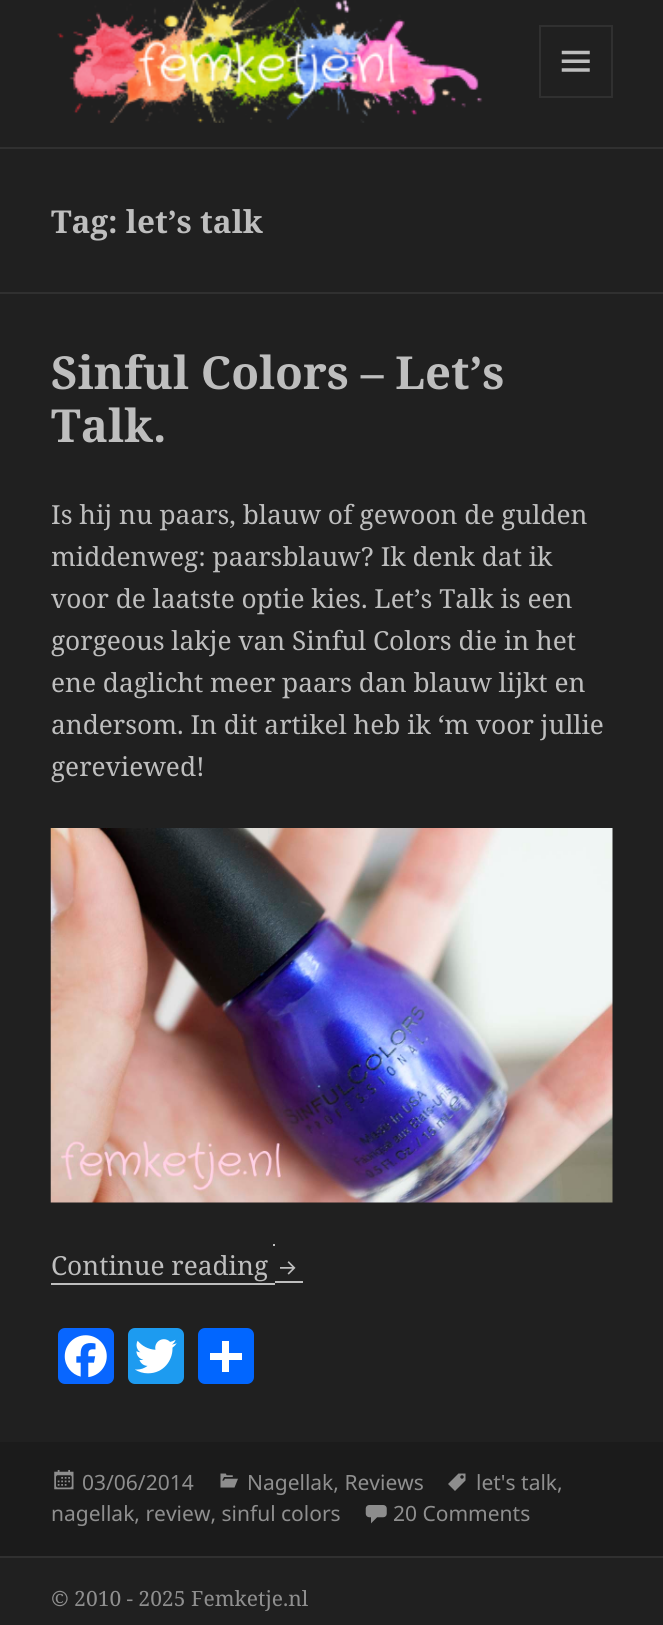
#include <cairo.h>
#include <math.h>
#include <stddef.h>

typedef struct { const char *family; double size; int italic, bold; unsigned color; } style_t;
static cairo_t *ctx;

static void ink(unsigned color) {
    cairo_set_source_rgb(ctx, (color >> 16) / 255.0, (color >> 8 & 255) / 255.0, (color & 255) / 255.0);
}

static void write(double x, double y, const char *s, const style_t *st) {
    cairo_select_font_face(ctx, st->family, st->italic ? CAIRO_FONT_SLANT_ITALIC : CAIRO_FONT_SLANT_NORMAL,
        st->bold ? CAIRO_FONT_WEIGHT_BOLD : CAIRO_FONT_WEIGHT_NORMAL);
    cairo_set_font_size(ctx, st->size);
    ink(st->color);
    cairo_move_to(ctx, x, y);
    cairo_show_text(ctx, s);
}

static void block(double x, double y, double w, double h, unsigned color) {
    ink(color);
    cairo_rectangle(ctx, x, y, w, h);
    cairo_fill(ctx);
}

static void round_path(double x, double y, double w, double h, double r) {
    cairo_new_sub_path(ctx);
    cairo_arc(ctx, x + w - r, y + h - r, r, 0, M_PI / 2);
    cairo_arc(ctx, x + r, y + h - r, r, M_PI / 2, M_PI);
    cairo_arc(ctx, x + r, y + r, r, M_PI, 1.5 * M_PI);
    cairo_arc(ctx, x + w - r, y + r, r, 1.5 * M_PI, 2 * M_PI);
    cairo_close_path(ctx);
}

static void paste(const char *path, double x, double y, double w, double h) {
    cairo_surface_t *image = cairo_image_surface_create_from_png(path);
    cairo_save(ctx);
    cairo_set_source_surface(ctx, image, x, y);
    cairo_rectangle(ctx, x, y, w, h);
    cairo_fill(ctx);
    cairo_restore(ctx);
    cairo_surface_destroy(image);
}

static const style_t s1 = {"Noto Serif", 31.5, 0, 1, 0xbebebe};
static const style_t s2 = {"Noto Serif", 45.5, 0, 1, 0xbebebe};
static const style_t s3 = {"Noto Serif", 26.25, 0, 0, 0xbebebe};
static const style_t s4 = {"Noto Sans", 21, 0, 0, 0x8f8f8f};
static const style_t s5 = {"Noto Serif", 21, 0, 0, 0x8f8f8f};

int main(void) {
    cairo_surface_t *surface = cairo_image_surface_create(CAIRO_FORMAT_RGB24, 663, 1625);
    ctx = cairo_create(surface);
    cairo_font_options_t *options = cairo_font_options_create();
    cairo_font_options_set_hint_metrics(options, CAIRO_HINT_METRICS_OFF);
    cairo_font_options_set_hint_style(options, CAIRO_HINT_STYLE_NONE);
    cairo_set_font_options(ctx, options);
    cairo_set_miter_limit(ctx, 4);
    ink(0x202020);
    cairo_paint(ctx);
    block(0, 147, 663, 2, 0x303030);
    paste("pic1.png", 57, 0, 426, 123);
    cairo_rectangle(ctx, 540, 26, 72, 71);
    cairo_stroke(ctx);
    paste("pic2.png", 561, 50, 29, 22);
    block(0, 292, 663, 2, 0x303030);
    write(51, 233, "Tag: let’s talk", &s1);
    write(51, 389, "Sinful Colors – Let’s", &s2);
    write(51, 442, "Talk.", &s2);
    write(51, 524, "Is hij nu paars, blauw of gewoon de gulden", &s3);
    write(51, 566, "middenweg: paarsblauw? Ik denk dat ik", &s3);
    write(51, 608, "voor de laatste optie kies. Let’s Talk is een", &s3);
    write(51, 650, "gorgeous lakje van Sinful Colors die in het", &s3);
    write(51, 692, "ene daglicht meer paars dan blauw lijkt en", &s3);
    write(51, 734, "andersom. In dit artikel heb ik ‘m voor jullie", &s3);
    write(51, 776, "gereviewed!", &s3);
    paste("pic3.png", 50, 828, 563, 375);
    block(51, 1283, 224, 2, 0xbebebe);
    block(273, 1244, 2, 2, 0xbebebe);
    block(275, 1281, 28, 2, 0xbebebe);
    write(51, 1275, "Continue reading", &s3);
    paste("pic4.png", 280, 1261, 16, 14);
    ink(0x0866ff);
    round_path(58, 1328, 56, 56, 7);
    cairo_fill(ctx);
    paste("pic5.png", 64, 1335, 43, 43);
    ink(0x1d9bf0);
    round_path(128, 1328, 56, 56, 7);
    cairo_fill(ctx);
    paste("pic6.png", 135, 1339, 42, 35);
    ink(0x0166ff);
    round_path(198, 1328, 56, 56, 7);
    cairo_fill(ctx);
    block(222, 1341, 7, 31, 0xffffff);
    block(210, 1353, 32, 7, 0xffffff);
    block(0, 1442, 663, 114, 0x1b1b1b);
    paste("pic7.png", 448, 1473, 18, 18);
    write(476, 1490, "let's talk,", &s4);
    write(51, 1521, "nagellak, review, sinful colors", &s4);
    paste("pic8.png", 54, 1470, 20, 20);
    write(82, 1490, "03/06/2014", &s4);
    paste("pic9.png", 220, 1473, 18, 15);
    write(247, 1490, "Nagellak, Reviews", &s4);
    paste("pic10.png", 365, 1505, 22, 19);
    write(393, 1521, "20 Comments", &s4);
    block(0, 1556, 663, 2, 0x303030);
    write(51, 1606, "© 2010 - 2025 Femketje.nl", &s5);
    cairo_surface_write_to_png(surface, "screenshot.png");
    cairo_font_options_destroy(options);
    cairo_destroy(ctx);
    cairo_surface_destroy(surface);
    return 0;
}
